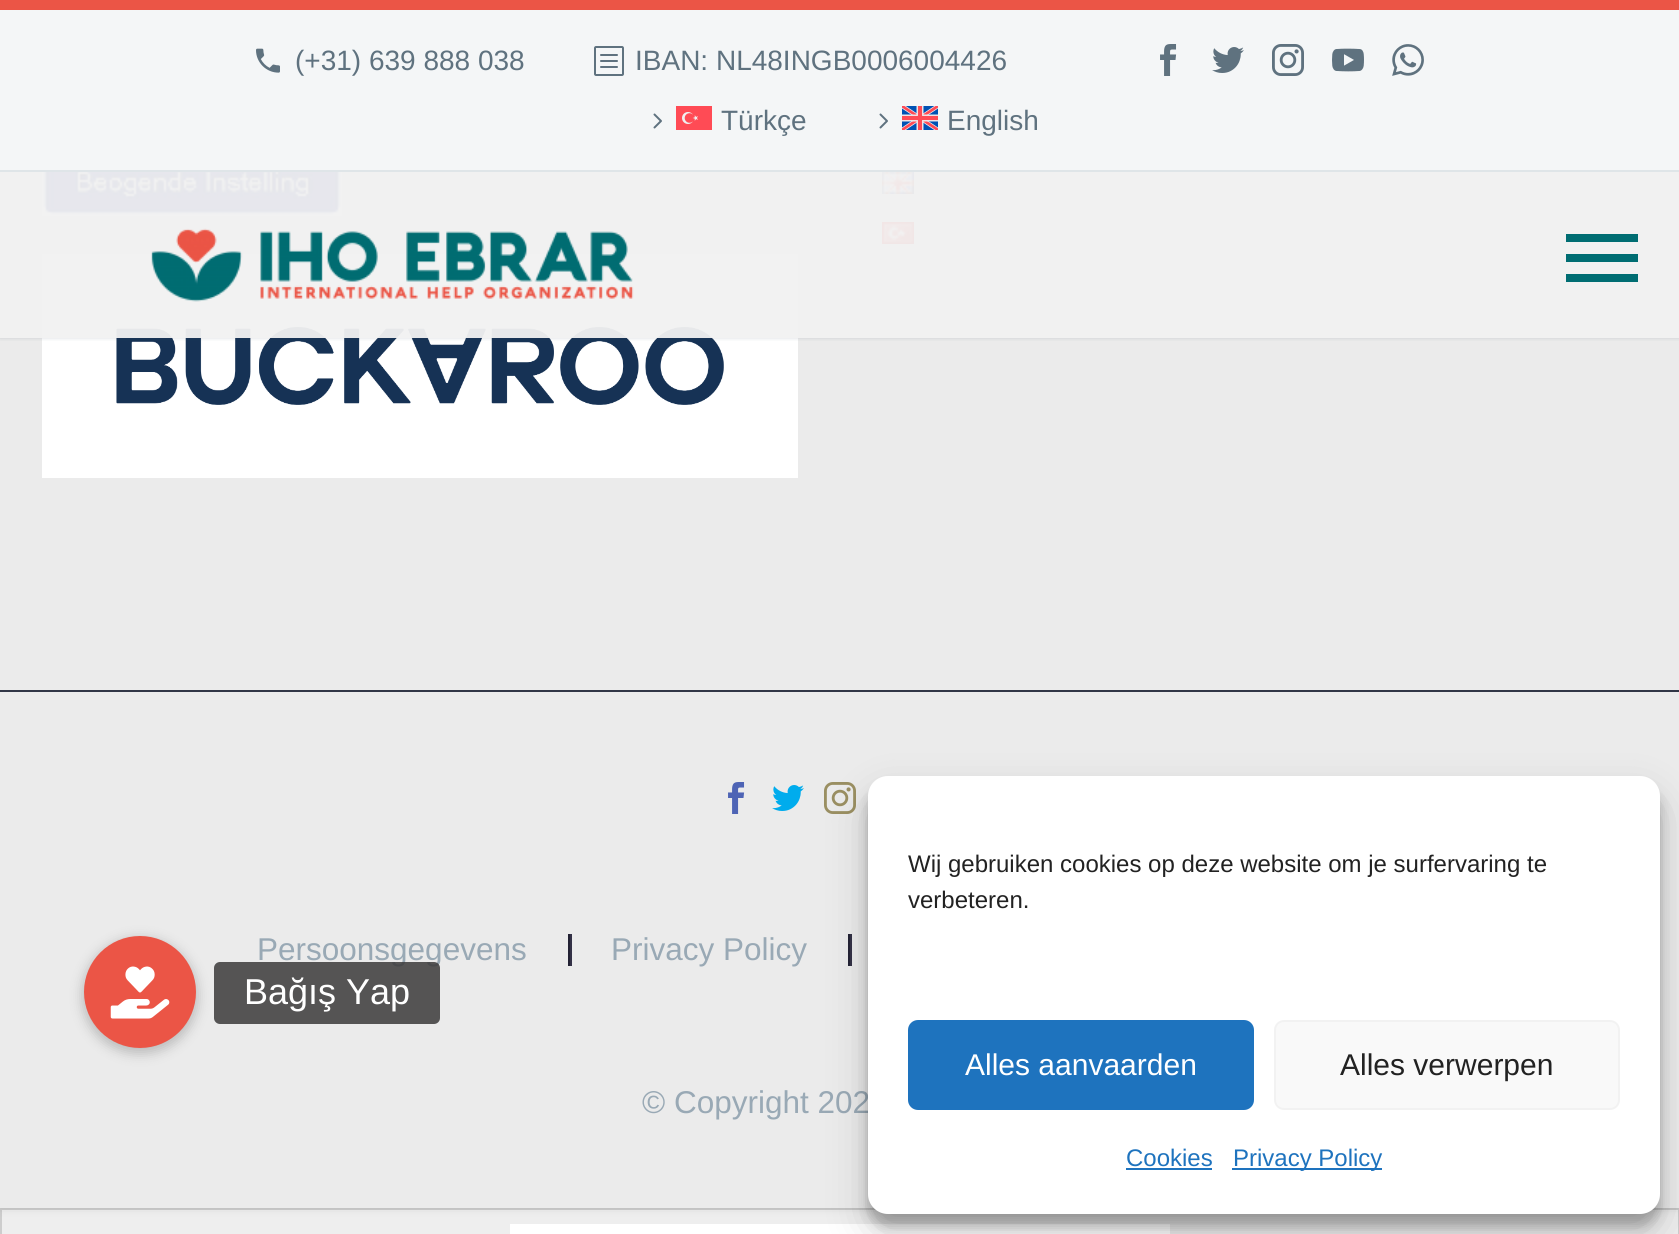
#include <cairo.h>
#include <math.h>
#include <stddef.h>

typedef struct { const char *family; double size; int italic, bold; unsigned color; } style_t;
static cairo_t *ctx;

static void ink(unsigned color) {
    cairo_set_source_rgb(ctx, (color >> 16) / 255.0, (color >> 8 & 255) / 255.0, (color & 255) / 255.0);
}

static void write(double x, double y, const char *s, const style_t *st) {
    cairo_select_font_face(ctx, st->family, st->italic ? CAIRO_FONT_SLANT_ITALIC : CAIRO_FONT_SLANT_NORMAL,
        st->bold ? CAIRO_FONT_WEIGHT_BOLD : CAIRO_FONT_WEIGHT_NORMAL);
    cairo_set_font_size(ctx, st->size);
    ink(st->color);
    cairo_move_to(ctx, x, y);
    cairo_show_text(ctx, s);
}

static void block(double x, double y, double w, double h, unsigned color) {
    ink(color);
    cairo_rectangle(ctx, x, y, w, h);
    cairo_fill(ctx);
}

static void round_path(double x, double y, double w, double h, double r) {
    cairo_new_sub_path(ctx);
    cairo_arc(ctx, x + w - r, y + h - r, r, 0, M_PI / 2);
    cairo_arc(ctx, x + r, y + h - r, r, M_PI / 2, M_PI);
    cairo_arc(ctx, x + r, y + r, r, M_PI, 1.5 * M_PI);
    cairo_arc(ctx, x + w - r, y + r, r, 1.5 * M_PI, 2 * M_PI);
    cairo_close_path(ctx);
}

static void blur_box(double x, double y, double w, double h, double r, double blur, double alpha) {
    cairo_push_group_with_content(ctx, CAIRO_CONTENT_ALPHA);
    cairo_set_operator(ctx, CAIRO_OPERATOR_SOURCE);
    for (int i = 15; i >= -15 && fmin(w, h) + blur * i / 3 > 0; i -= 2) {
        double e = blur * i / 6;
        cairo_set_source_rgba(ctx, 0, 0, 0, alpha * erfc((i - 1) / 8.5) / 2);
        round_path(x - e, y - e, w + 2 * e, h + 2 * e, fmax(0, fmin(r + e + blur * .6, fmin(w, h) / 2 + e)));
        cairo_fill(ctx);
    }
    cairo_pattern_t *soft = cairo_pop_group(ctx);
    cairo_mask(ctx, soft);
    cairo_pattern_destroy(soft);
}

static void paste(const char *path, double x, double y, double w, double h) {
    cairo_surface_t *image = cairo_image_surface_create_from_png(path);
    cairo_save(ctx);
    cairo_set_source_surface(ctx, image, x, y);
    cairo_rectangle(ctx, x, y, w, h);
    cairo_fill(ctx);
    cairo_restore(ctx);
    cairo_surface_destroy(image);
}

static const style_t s1 = {"Liberation Sans", 28, 0, 0, 0x5f727f};
static const style_t s2 = {"Liberation Sans", 31.5, 0, 0, 0x99a9b5};
static const style_t s3 = {"Liberation Sans", 24, 0, 0, 0x222222};
static const style_t s4 = {"Liberation Sans", 30, 0, 0, 0xffffff};
static const style_t s5 = {"Liberation Sans", 30, 0, 0, 0x222222};
static const style_t s6 = {"Liberation Sans", 24, 0, 0, 0x1e73be};
static const style_t s7 = {"Liberation Sans", 36, 0, 0, 0xffffff};

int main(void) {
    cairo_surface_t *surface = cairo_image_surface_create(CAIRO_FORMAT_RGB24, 1679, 1234);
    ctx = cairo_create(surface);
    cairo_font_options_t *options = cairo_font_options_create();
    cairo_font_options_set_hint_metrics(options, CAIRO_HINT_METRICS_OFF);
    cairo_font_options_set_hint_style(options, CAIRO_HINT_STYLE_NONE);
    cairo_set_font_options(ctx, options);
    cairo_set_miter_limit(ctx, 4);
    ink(0xeeeeee);
    cairo_paint(ctx);
    cairo_rectangle(ctx, 1, 1209, 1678, 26);
    ink(0xcdcdcd);
    cairo_stroke(ctx);
    ink(0x000000);
    blur_box(0, -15, 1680, 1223, 0, 5, 0.11);
    block(0, 172, 1679, 518, 0xebebeb);
    paste("pic12.png", 42, 172, 300, 44);
    paste("pic13.png", 42, 254, 756, 224);
    paste("pic14.png", 882, 172, 32, 22);
    paste("pic15.png", 882, 222, 32, 22);
    cairo_save(ctx);
    cairo_rectangle(ctx, 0, 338, 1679, 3);
    cairo_clip(ctx);
    ink(0x384554);
    blur_box(0, 0, 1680, 338, 0, 2, 0.2);
    cairo_restore(ctx);
    cairo_set_source_rgba(ctx, 0.949, 0.949, 0.949, 0.95);
    cairo_rectangle(ctx, 0, 172, 1679, 166);
    cairo_fill(ctx);
    block(0, 10, 1679, 160, 0xf4f6f7);
    block(0, 0, 1679, 10, 0xeb5546);
    block(0, 170, 1679, 2, 0xdfe5e8);
    paste("pic1.png", 256, 48, 24, 25);
    write(295, 70, "(+31) 639 888 038", &s1);
    paste("pic2.png", 594, 46, 30, 30);
    write(635, 70, "IBAN: NL48INGB0006004426", &s1);
    paste("pic3.png", 1160, 44, 17, 32);
    paste("pic4.png", 1212, 47, 32, 26);
    paste("pic5.png", 1272, 44, 32, 32);
    paste("pic6.png", 1332, 48, 32, 24);
    paste("pic7.png", 1392, 44, 32, 32);
    paste("pic8.png", 653, 113, 9, 16);
    paste("pic9.png", 676, 106, 36, 24);
    write(721, 130, "Türkçe", &s1);
    paste("pic8.png", 879, 113, 9, 16);
    paste("pic10.png", 902, 106, 36, 24);
    write(947, 130, "English", &s1);
    paste("pic11.png", 151, 228, 483, 74);
    block(1566, 234, 72, 8, 0x006d72);
    block(1566, 254, 72, 8, 0x006d72);
    block(1566, 274, 72, 8, 0x006d72);
    block(0, 692, 1679, 516, 0xebebeb);
    block(0, 690, 1679, 2, 0x313646);
    paste("pic16.png", 728, 782, 17, 32);
    paste("pic17.png", 772, 785, 32, 26);
    paste("pic18.png", 824, 782, 32, 32);
    write(257, 960, "Persoonsgegevens", &s2);
    block(570, 934, 2, 32, 0x333146);
    block(568, 934, 2, 32, 0x232234);
    write(611, 960, "Privacy Policy", &s2);
    block(850, 934, 2, 32, 0x333146);
    block(848, 934, 2, 32, 0x232234);
    write(642, 1113, "© Copyright 202", &s2);
    block(510, 1224, 660, 10, 0xffffff);
    ink(0x000000);
    blur_box(868, 788, 792, 438, 20, 6, 0.23);
    blur_box(868, 796, 792, 438, 20, 20, 0.19);
    ink(0xffffff);
    round_path(868, 776, 792, 438, 20);
    cairo_fill(ctx);
    write(908, 872, "Wij gebruiken cookies op deze website om je surfervaring te", &s3);
    write(908, 908, "verbeteren.", &s3);
    ink(0x1e73be);
    round_path(909, 1021, 344, 88, 9);
    cairo_fill_preserve(ctx);
    cairo_stroke(ctx);
    write(965, 1075, "Alles aanvaarden", &s4);
    ink(0xf9f9f9);
    round_path(1275, 1021, 344, 88, 9);
    cairo_fill_preserve(ctx);
    ink(0xf2f2f2);
    cairo_stroke(ctx);
    write(1340, 1075, "Alles verwerpen", &s5);
    write(1126, 1166, "Cookies", &s6);
    block(1126, 1168, 86, 2, 0x1e73be);
    block(1232, 1168, 150, 2, 0x1e73be);
    write(1233, 1166, "Privacy Policy", &s6);
    ink(0x000000);
    blur_box(82, 938, 116, 116, 58, 6, 0.2);
    ink(0xeb5546);
    cairo_arc(ctx, 140, 992, 56, 0, 2 * M_PI);
    cairo_fill(ctx);
    paste("pic19.png", 110, 966, 60, 53);
    cairo_set_source_rgba(ctx, 0.231, 0.227, 0.227, 0.85);
    round_path(214, 962, 226, 62, 6);
    cairo_fill(ctx);
    write(244, 1004, "Bağış Yap", &s7);
    cairo_surface_write_to_png(surface, "screenshot.png");
    cairo_font_options_destroy(options);
    cairo_destroy(ctx);
    cairo_surface_destroy(surface);
    return 0;
}
